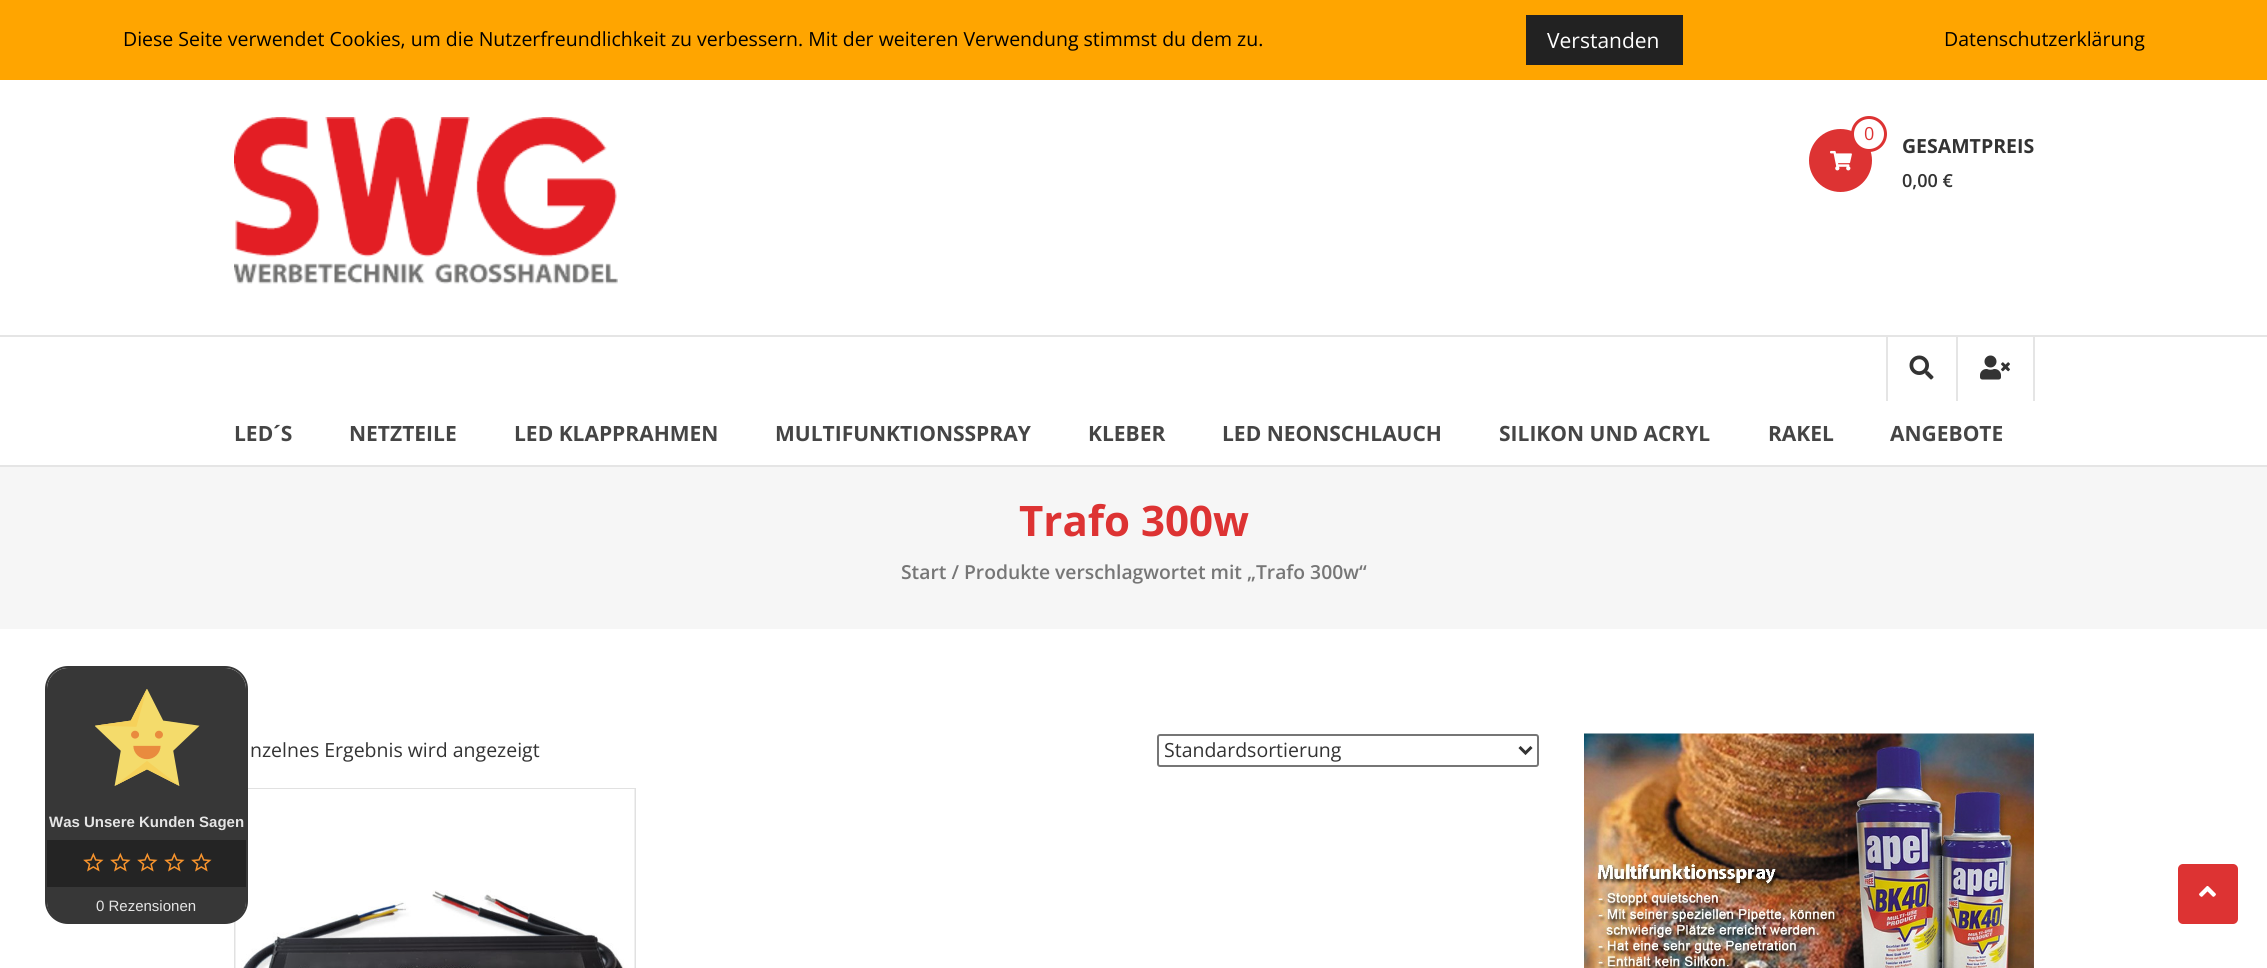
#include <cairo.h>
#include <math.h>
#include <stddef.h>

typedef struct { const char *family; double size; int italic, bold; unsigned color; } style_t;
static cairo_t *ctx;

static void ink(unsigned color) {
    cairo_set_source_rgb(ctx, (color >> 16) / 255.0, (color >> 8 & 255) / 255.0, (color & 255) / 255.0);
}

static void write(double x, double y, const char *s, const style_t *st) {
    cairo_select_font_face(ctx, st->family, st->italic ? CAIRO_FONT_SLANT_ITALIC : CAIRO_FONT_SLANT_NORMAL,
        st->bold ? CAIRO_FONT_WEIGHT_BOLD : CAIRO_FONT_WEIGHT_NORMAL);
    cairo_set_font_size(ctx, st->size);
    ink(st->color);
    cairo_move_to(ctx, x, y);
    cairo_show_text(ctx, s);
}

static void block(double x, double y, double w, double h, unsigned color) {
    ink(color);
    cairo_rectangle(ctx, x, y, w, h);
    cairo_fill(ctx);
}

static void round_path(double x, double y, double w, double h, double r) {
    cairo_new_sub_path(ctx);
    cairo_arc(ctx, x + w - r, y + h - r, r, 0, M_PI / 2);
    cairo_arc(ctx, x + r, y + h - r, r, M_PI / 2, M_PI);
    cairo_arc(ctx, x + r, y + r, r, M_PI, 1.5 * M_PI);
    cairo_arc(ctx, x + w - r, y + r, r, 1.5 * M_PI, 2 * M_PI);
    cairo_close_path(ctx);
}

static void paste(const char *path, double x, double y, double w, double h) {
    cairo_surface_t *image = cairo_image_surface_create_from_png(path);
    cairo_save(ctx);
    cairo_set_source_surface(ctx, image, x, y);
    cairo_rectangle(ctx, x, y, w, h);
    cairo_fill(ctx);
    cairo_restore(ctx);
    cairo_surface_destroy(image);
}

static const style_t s1 = {"Open Sans", 19.5, 0, 0, 0x000000};
static const style_t s2 = {"Open Sans", 21, 0, 0, 0xffffff};
static const style_t s3 = {"Open Sans", 18, 0, 0, 0xdd3333};
static const style_t s4 = {"Open Sans", 19.5, 0, 1, 0x333333};
static const style_t s5 = {"Open Sans SemiBold", 18, 0, 0, 0x333333};
static const style_t s6 = {"Open Sans", 21, 0, 1, 0x454545};
static const style_t s7 = {"Open Sans", 42, 0, 1, 0xdd3333};
static const style_t s8 = {"Open Sans SemiBold", 19.3, 0, 0, 0x767676};
static const style_t s9 = {"Open Sans", 19.5, 0, 0, 0x333333};
static const style_t s10 = {"Liberation Sans", 15, 0, 1, 0xe5e5e5};
static const style_t s11 = {"Liberation Sans", 15, 0, 0, 0xe5e5e5};

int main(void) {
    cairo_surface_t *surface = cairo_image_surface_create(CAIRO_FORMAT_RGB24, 2267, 968);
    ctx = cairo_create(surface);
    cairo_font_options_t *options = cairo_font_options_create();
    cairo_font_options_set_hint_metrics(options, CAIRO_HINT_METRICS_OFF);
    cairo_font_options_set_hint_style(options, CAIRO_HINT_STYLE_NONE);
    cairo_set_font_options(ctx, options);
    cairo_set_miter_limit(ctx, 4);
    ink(0xffffff);
    cairo_paint(ctx);
    block(0, 0, 2267, 80, 0xffa500);
    write(123, 46, "Diese Seite verwendet Cookies, um die Nutzerfreundlichkeit zu verbessern. Mit der weiteren Verwendung stimmst du dem zu.", &s1);
    block(1526, 15, 157, 50, 0x222222);
    write(1547, 48, "Verstanden", &s2);
    write(1944, 46, "Datenschutzerklärung", &s1);
    paste("pic1.png", 234, 117, 384, 167);
    ink(0xdd3333);
    cairo_arc(ctx, 1840.5, 160.5, 31.5, 0, 2 * M_PI);
    cairo_fill(ctx);
    paste("pic2.png", 1830, 150, 22, 21);
    ink(0xffffff);
    cairo_arc(ctx, 1869, 134, 16.5, 0, 2 * M_PI);
    cairo_fill_preserve(ctx);
    ink(0xdd3333);
    cairo_set_line_width(ctx, 3);
    cairo_stroke(ctx);
    write(1864, 140, "0", &s3);
    write(1902, 153, "GESAMTPREIS", &s4);
    write(1902, 187, "0,00 €", &s5);
    block(0, 335, 2267, 2, 0xe5e5e5);
    block(0, 465, 2267, 2, 0xe5e5e5);
    block(1886, 336, 2, 65, 0xe5e5e5);
    paste("pic3.png", 1909, 355, 25, 25);
    block(2033, 336, 2, 65, 0xe5e5e5);
    block(1956, 336, 2, 65, 0xe5e5e5);
    paste("pic4.png", 1980, 355, 30, 25);
    write(234, 441, "LED´S", &s6);
    write(349, 441, "NETZTEILE", &s6);
    write(514, 441, "LED KLAPPRAHMEN", &s6);
    write(775, 441, "MULTIFUNKTIONSSPRAY", &s6);
    write(1088, 441, "KLEBER", &s6);
    write(1222, 441, "LED NEONSCHLAUCH", &s6);
    write(1499, 441, "SILIKON UND ACRYL", &s6);
    write(1768, 441, "RAKEL", &s6);
    write(1890, 441, "ANGEBOTE", &s6);
    block(0, 467, 2267, 162, 0xf6f6f6);
    write(1019, 536, "Trafo 300w", &s7);
    write(901, 579, "Start / Produkte verschlagwortet mit „Trafo 300w“", &s8);
    write(250, 757, "nzelnes Ergebnis wird angezeigt", &s9);
    round_path(1158, 735, 380, 31, 2);
    ink(0x767676);
    cairo_set_line_width(ctx, 2);
    cairo_stroke(ctx);
    cairo_new_path(ctx);
    cairo_move_to(ctx, 1519.5, 747);
    cairo_line_to(ctx, 1525.5, 753);
    cairo_line_to(ctx, 1531.5, 747);
    ink(0x333333);
    cairo_set_line_width(ctx, 3);
    cairo_stroke(ctx);
    write(1164, 757, "Standardsortierung", &s9);
    cairo_rectangle(ctx, 235, 789, 400, 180);
    ink(0xe1e1e1);
    cairo_set_line_width(ctx, 2);
    cairo_stroke(ctx);
    paste("pic5.png", 235, 789, 400, 179);
    paste("pic6.png", 1584, 733, 450, 235);
    ink(0xdd3333);
    round_path(2178, 864, 60, 60, 5);
    cairo_fill(ctx);
    paste("pic7.png", 2199, 886, 17, 11);
    round_path(46, 667, 201, 256, 22);
    ink(0x373737);
    cairo_stroke(ctx);
    cairo_new_path(ctx);
    cairo_move_to(ctx, 68, 668);
    cairo_line_to(ctx, 225, 668);
    cairo_curve_to(ctx, 236.5, 668, 246, 677.5, 246, 689);
    cairo_line_to(ctx, 246, 840);
    cairo_line_to(ctx, 47, 840);
    cairo_line_to(ctx, 47, 689);
    cairo_curve_to(ctx, 47, 677.5, 56.5, 668, 68, 668);
    cairo_close_path(ctx);
    cairo_fill(ctx);
    block(47, 840, 199, 47, 0x242424);
    ink(0x373737);
    cairo_new_path(ctx);
    cairo_move_to(ctx, 47, 887);
    cairo_line_to(ctx, 246, 887);
    cairo_line_to(ctx, 246, 902);
    cairo_curve_to(ctx, 246, 913.5, 236.5, 923, 225, 923);
    cairo_line_to(ctx, 68, 923);
    cairo_curve_to(ctx, 56.5, 923, 47, 913.5, 47, 902);
    cairo_close_path(ctx);
    cairo_fill(ctx);
    paste("pic8.png", 95, 689, 105, 97);
    write(49, 827, "Was Unsere Kunden Sagen", &s10);
    paste("pic9.png", 83, 852, 21, 20);
    paste("pic9.png", 110, 852, 21, 20);
    paste("pic9.png", 137, 852, 21, 20);
    paste("pic9.png", 164, 852, 21, 20);
    paste("pic9.png", 191, 852, 21, 20);
    write(96, 911, "0 Rezensionen", &s11);
    cairo_surface_write_to_png(surface, "screenshot.png");
    cairo_font_options_destroy(options);
    cairo_destroy(ctx);
    cairo_surface_destroy(surface);
    return 0;
}
